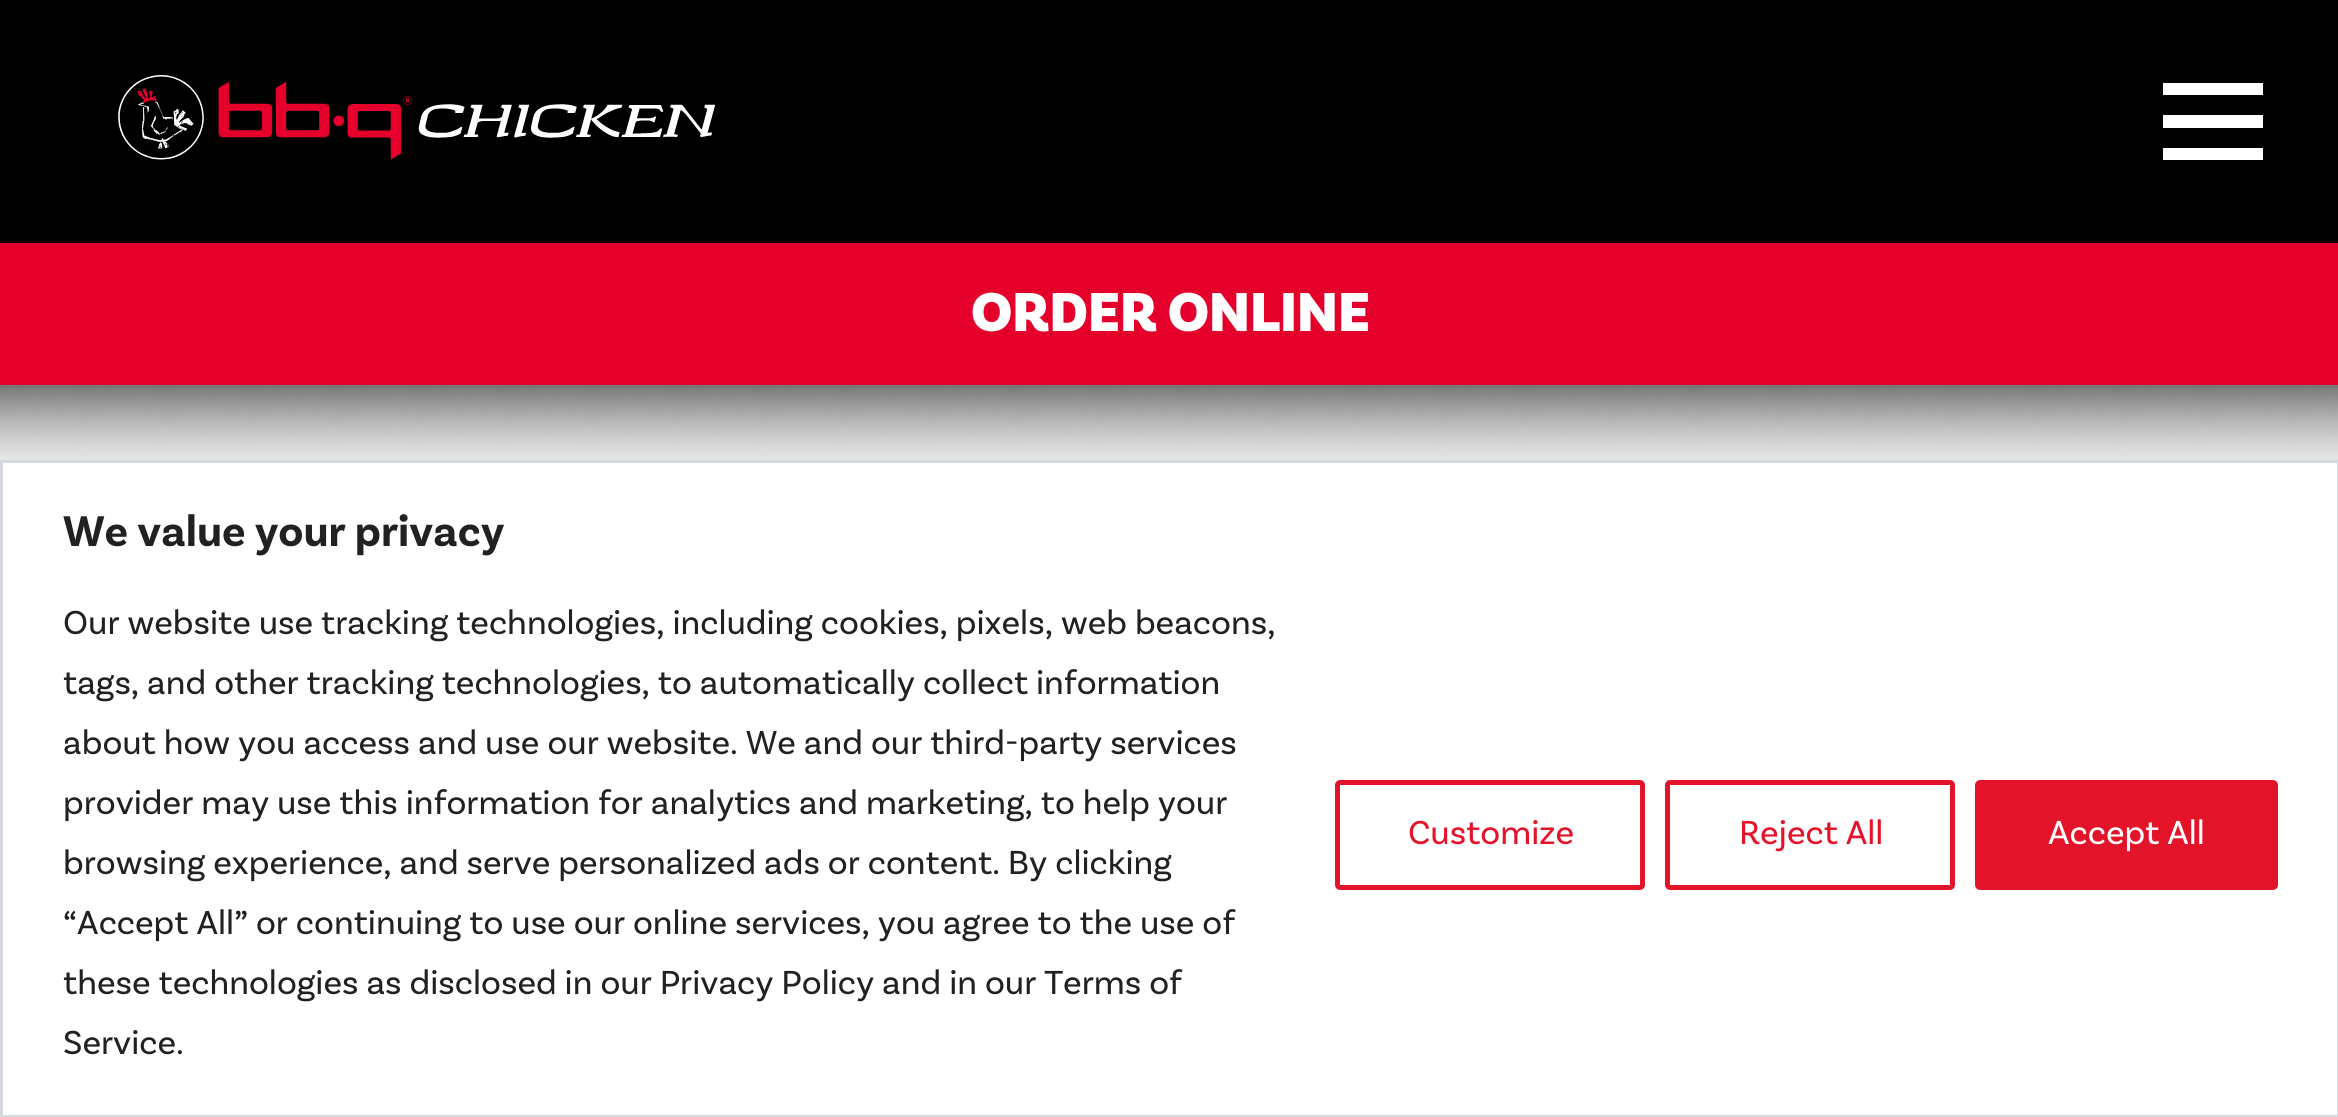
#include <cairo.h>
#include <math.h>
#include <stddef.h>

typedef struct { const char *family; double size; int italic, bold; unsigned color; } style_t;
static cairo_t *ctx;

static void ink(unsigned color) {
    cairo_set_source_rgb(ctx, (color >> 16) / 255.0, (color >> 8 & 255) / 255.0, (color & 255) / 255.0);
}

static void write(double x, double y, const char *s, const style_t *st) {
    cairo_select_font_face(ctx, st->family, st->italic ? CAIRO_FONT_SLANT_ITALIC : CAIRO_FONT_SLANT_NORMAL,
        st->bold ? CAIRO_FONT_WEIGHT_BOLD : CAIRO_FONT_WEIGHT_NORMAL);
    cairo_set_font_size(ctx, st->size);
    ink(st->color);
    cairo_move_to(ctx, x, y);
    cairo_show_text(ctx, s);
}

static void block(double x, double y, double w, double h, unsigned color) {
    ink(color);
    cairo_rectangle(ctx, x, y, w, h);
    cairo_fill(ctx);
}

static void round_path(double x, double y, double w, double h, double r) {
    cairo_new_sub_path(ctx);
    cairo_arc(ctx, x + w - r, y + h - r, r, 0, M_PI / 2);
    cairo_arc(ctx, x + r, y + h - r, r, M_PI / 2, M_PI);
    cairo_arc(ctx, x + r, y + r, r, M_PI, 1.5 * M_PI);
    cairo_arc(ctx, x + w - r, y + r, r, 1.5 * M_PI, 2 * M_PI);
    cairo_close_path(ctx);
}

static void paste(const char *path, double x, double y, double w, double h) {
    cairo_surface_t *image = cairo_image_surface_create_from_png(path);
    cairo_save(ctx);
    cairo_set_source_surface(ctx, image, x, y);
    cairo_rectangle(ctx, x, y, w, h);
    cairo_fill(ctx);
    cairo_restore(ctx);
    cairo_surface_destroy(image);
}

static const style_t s1 = {"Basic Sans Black", 57.5, 0, 0, 0xffffff};
static const style_t s2 = {"Basic Sans", 45, 0, 1, 0x212121};
static const style_t s3 = {"Basic Sans", 35, 0, 0, 0x212121};
static const style_t s4 = {"Basic Sans", 35, 0, 0, 0xe3142a};
static const style_t s5 = {"Basic Sans", 35, 0, 0, 0xffffff};

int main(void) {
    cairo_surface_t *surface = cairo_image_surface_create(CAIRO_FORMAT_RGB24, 2338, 1117);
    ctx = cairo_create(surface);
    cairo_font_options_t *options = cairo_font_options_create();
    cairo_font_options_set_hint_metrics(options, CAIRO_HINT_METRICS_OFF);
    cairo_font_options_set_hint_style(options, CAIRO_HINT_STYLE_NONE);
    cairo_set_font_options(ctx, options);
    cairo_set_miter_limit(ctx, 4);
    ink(0xffffff);
    cairo_paint(ctx);
    block(0, 0, 2338, 243, 0x000000);
    paste("pic1.png", 118, 75, 598, 85);
    block(2163, 83, 100, 12, 0xffffff);
    block(2163, 115, 100, 13, 0xffffff);
    block(2163, 148, 100, 12, 0xffffff);
    block(0, 243, 2338, 142, 0xe4002b);
    write(971, 331, "ORDER ONLINE", &s1);
    paste("pic2.png", 0, 385, 2338, 75);
    cairo_rectangle(ctx, 1.5, 461.5, 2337, 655);
    ink(0xd4d8df);
    cairo_set_line_width(ctx, 3);
    cairo_stroke(ctx);
    write(63, 546, "We value your privacy", &s2);
    write(63, 634, "Our website use tracking technologies, including cookies, pixels, web beacons,", &s3);
    write(63, 694, "tags, and other tracking technologies, to automatically collect information", &s3);
    write(63, 754, "about how you access and use our website. We and our third-party services", &s3);
    write(63, 814, "provider may use this information for analytics and marketing, to help your", &s3);
    write(63, 874, "browsing experience, and serve personalized ads or content. By clicking", &s3);
    write(63, 934, "“Accept All” or continuing to use our online services, you agree to the use of", &s3);
    write(63, 994, "these technologies as disclosed in our Privacy Policy and in our Terms of", &s3);
    write(63, 1054, "Service.", &s3);
    round_path(1337.5, 782.5, 305, 105, 2.5);
    ink(0xe3142a);
    cairo_set_line_width(ctx, 5);
    cairo_stroke(ctx);
    write(1408, 844, "Customize", &s4);
    round_path(1667.5, 782.5, 285, 105, 2.5);
    cairo_stroke(ctx);
    write(1739, 844, "Reject All", &s4);
    round_path(1977.5, 782.5, 298, 105, 2.5);
    cairo_fill_preserve(ctx);
    cairo_stroke(ctx);
    write(2048, 844, "Accept All", &s5);
    cairo_surface_write_to_png(surface, "screenshot.png");
    cairo_font_options_destroy(options);
    cairo_destroy(ctx);
    cairo_surface_destroy(surface);
    return 0;
}
